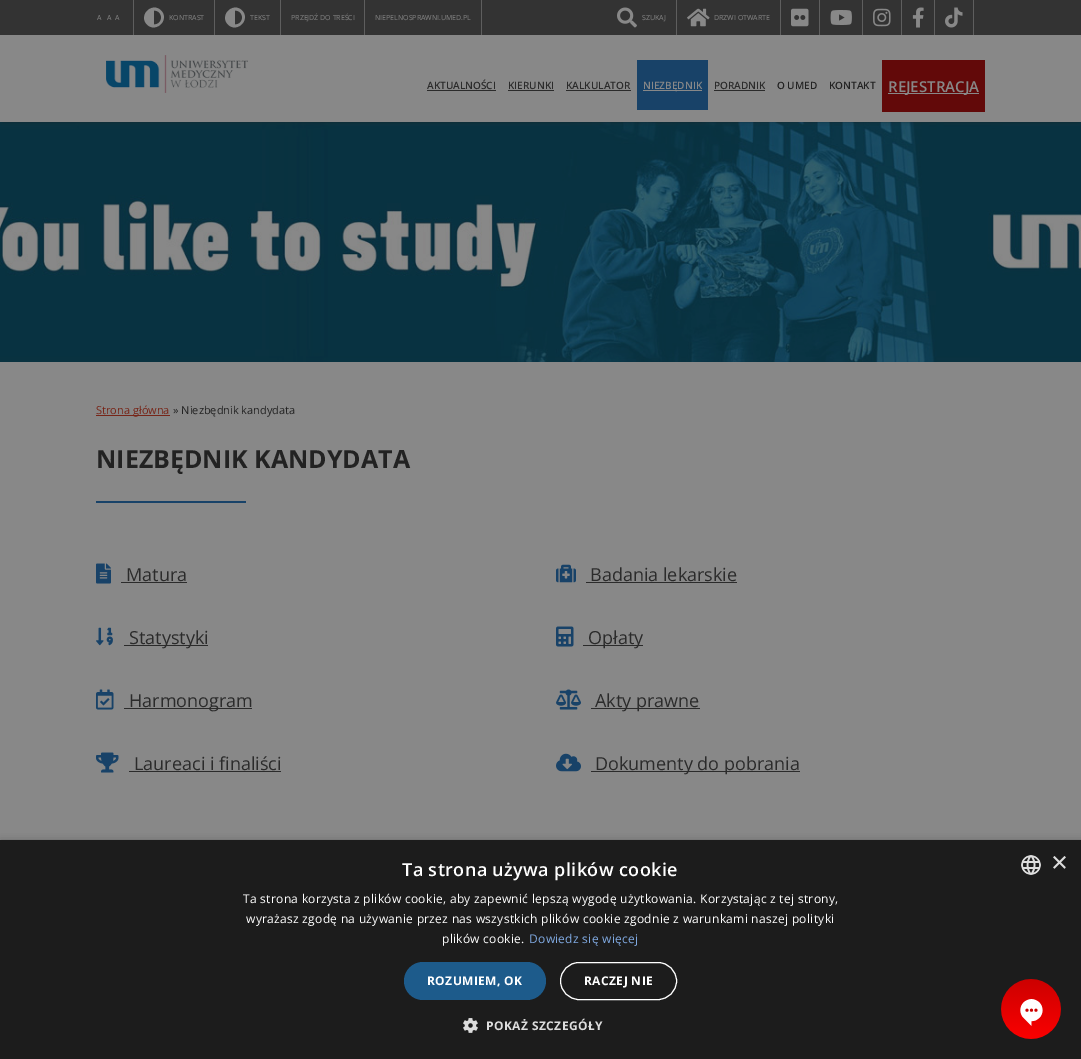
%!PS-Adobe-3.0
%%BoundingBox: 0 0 1081 1059
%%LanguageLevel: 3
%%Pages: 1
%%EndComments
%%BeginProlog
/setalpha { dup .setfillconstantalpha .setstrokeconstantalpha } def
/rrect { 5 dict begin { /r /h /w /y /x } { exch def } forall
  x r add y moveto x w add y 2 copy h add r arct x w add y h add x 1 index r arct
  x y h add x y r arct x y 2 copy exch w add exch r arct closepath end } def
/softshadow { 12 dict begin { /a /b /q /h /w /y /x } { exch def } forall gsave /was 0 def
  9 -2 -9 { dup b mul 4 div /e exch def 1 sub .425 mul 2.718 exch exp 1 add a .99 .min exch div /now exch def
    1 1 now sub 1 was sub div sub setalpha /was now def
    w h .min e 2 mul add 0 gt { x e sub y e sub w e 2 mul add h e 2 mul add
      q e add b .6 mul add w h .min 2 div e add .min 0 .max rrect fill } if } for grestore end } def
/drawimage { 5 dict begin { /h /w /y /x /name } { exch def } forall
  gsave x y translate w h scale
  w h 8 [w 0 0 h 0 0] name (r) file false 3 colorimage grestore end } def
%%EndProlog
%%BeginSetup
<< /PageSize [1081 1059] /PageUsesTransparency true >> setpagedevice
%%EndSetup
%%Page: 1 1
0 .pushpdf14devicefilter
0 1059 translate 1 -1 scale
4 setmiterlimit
0.533 setgray
0 0 1081 1059 rectfill
(images/9.raw) 0 122 1081 240 drawimage
gsave
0 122 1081 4 rectclip
0.133 setgray
3 5 1075 116 0 2.5 0.69 softshadow
grestore
0.2 setgray
0 0 1081 35 rectfill
0.369 setgray
133 0 1 35 rectfill
214 0 1 35 rectfill
0.533 setgray
newpath 147 24.5 moveto 138 15.5 152 1.5 161 10.5 curveto 170 19.5 156 33.5 147 24.5 curveto closepath 154 24.5 moveto 163.5 24.5 163.5 10.5 154 10.5 curveto closepath fill
0.369 setgray
280 0 1 35 rectfill
0.533 setgray
newpath 228 24.5 moveto 219 15.5 233 1.5 242 10.5 curveto 251 19.5 237 33.5 228 24.5 curveto closepath 235 24.5 moveto 244.5 24.5 244.5 10.5 235 10.5 curveto closepath fill
0.369 setgray
364 0 1 35 rectfill
481 0 1 35 rectfill
676 0 1 35 rectfill
(images/1.raw) 617 7 20 21 drawimage
780 0 1 35 rectfill
(images/2.raw) 687 8 23 19 drawimage
819 0 1 35 rectfill
(images/3.raw) 791 8 18 19 drawimage
862 0 1 35 rectfill
(images/4.raw) 830 10 22 15 drawimage
901 0 1 35 rectfill
(images/5.raw) 873 8 18 19 drawimage
934 0 1 35 rectfill
(images/6.raw) 912 7 12 21 drawimage
973 0 1 35 rectfill
(images/7.raw) 945 7 18 21 drawimage
(images/8.raw) 106 55 142 38 drawimage
0.169 setgray
427 90 69 1 rectfill
508 90 46 1 rectfill
566 90 65 1 rectfill
0.094 0.259 0.408 setrgbcolor
637 60 71 50 rectfill
0.533 setgray
643 90 59 1 rectfill
0.169 setgray
714 90 51 1 rectfill
0.384 0.035 0.035 setrgbcolor
882 60 103 52 rectfill
0.533 setgray
888 93 91 1 rectfill
0.467 0.145 0.094 setrgbcolor
96 415 74 1 rectfill
0.094 0.259 0.408 setrgbcolor
96 501 150 2 rectfill
(images/10.raw) 96 563 15 21 drawimage
0.169 setgray
121 582 66 1 rectfill
(images/11.raw) 96 627 17 19 drawimage
124 645 84 1 rectfill
(images/12.raw) 96 689 18 21 drawimage
124 708 128 1 rectfill
(images/13.raw) 96 752 23 21 drawimage
129 771 152 1 rectfill
(images/14.raw) 556 564 20 19 drawimage
586 582 151 1 rectfill
(images/15.raw) 556 626 18 21 drawimage
583 645 60 1 rectfill
(images/16.raw) 556 689 25 21 drawimage
591 708 109 1 rectfill
(images/17.raw) 556 753 25 19 drawimage
591 771 209 1 rectfill
0 setgray
1 842 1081 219 0 4 0.35 softshadow
0.11 setgray
0 840 1081 219 rectfill
(images/18.raw) 1021 855 20 20 drawimage
0.114 0.357 0.545 setrgbcolor
404 962 142 38 19 rrect fill
1 setgray
560.5 962.5 116 37 18.5 rrect stroke
(images/19.raw) 463 1018 15 15 drawimage
(images/20.raw) 1001 979 60 60 drawimage
/OpenSans-Regular [7 0 0 -7 0 0] selectfont
0.533 setgray
97 20 moveto (A) show
107 20 moveto (A) show
115 20 moveto (A) show
169 20 moveto (KONTRAST) show
250 20 moveto (TEKST) show
291 20 moveto (PRZEJDŹ DO TREŚCI) show
375 20 moveto (NIEPELNOSPRAWNI.UMED.PL) show
642 20 moveto (SZUKAJ) show
714 20 moveto (DRZWI OTWARTE) show
/OpenSans-SemiBold [10 0 0 -10 0 0] selectfont
0.169 setgray
427 89 moveto (AKTUALNOŚCI) show
508 89 moveto (KIERUNKI) show
566 89 moveto (KALKULATOR) show
0.533 setgray
643 89 moveto (NIEZBĘDNIK) show
0.169 setgray
714 89 moveto (PORADNIK) show
0.133 setgray
777 89 moveto (O UMED) show
829 89 moveto (KONTAKT) show
/OpenSans-SemiBold [15 0 0 -15 0 0] selectfont
0.533 setgray
888 92 moveto (REJESTRACJA) show
/OpenSans-Regular [11 0 0 -11 0 0] selectfont
0.467 0.145 0.094 setrgbcolor
96 414 moveto (Strona główna) show
0.133 setgray
173 414 moveto (» Niezbędnik kandydata) show
/OpenSans-Bold [25 0 0 -25 0 0] selectfont
96 468 moveto (NIEZBĘDNIK KANDYDATA) show
/OpenSans-Regular [18 0 0 -18 0 0] selectfont
0.169 setgray
126 581 moveto (Matura) show
129 644 moveto (Statystyki) show
129 707 moveto (Harmonogram) show
134 770 moveto (Laureaci i finaliści) show
590 581 moveto (Badania lekarskie) show
588 644 moveto (Opłaty) show
595 707 moveto (Akty prawne) show
595 770 moveto (Dokumenty do pobrania) show
/OpenSans-SemiBold [18 0 0 -18 0 0] selectfont
1 setgray
402 876 moveto 0.4 0 (Ta strona używa plików cookie) ashow
/LiberationSans-Regular [29 0 0 -29 0 0] selectfont
0.867 setgray
1051 872 moveto (×) show
/OpenSans-Regular [12 0 0 -12 0 0] selectfont
1 setgray
243 903 moveto 0.3 0 (Ta strona korzysta z plików cookie, aby zapewnić lepszą wygodę użytkowania. Korzystając z tej strony,) ashow
246 923 moveto 0.3 0 (wyrażasz zgodę na używanie przez nas wszystkich plików cookie zgodnie z warunkami naszej polityki) ashow
442 943 moveto 0.3 0 (plików cookie.) ashow
0.498 0.663 0.882 setrgbcolor
529 943 moveto 0.3 0 (Dowiedz się więcej) ashow
/OpenSans-Bold [12 0 0 -12 0 0] selectfont
1 setgray
427 985 moveto 0.4 0 (ROZUMIEM, OK) ashow
584 985 moveto 0.4 0 (RACZEJ NIE) ashow
0.867 setgray
486 1030 moveto 0.4 0 (POKAŻ SZCZEGÓŁY) ashow
.poppdf14devicefilter showpage
%%EOF
